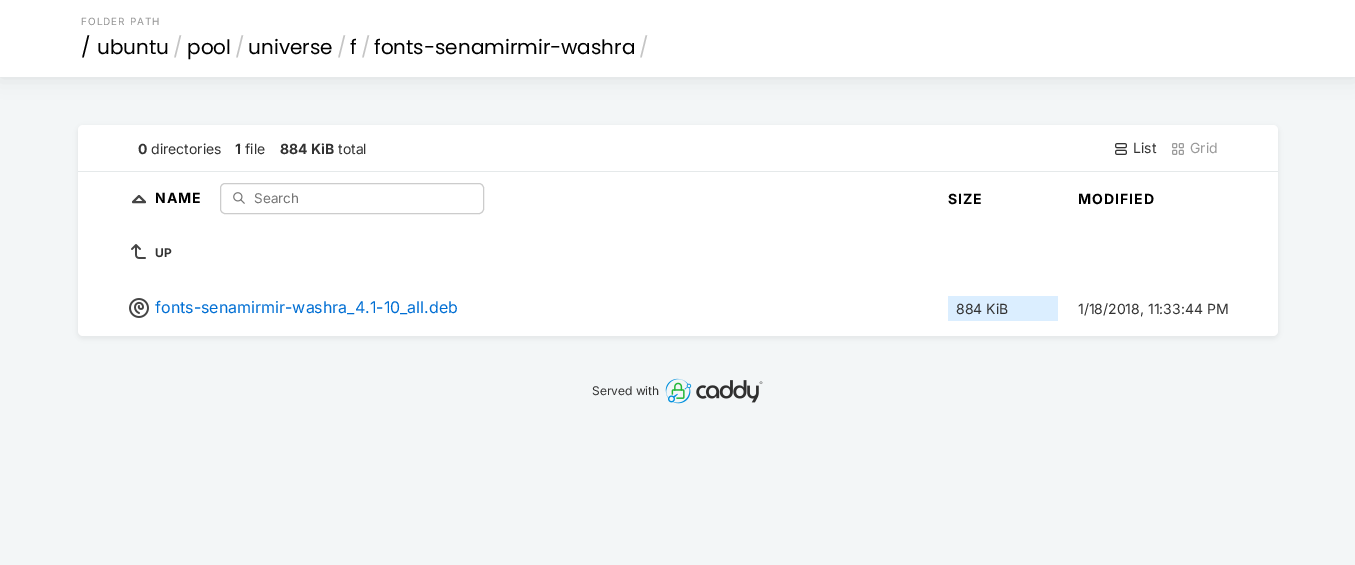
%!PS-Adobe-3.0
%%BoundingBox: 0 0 1355 565
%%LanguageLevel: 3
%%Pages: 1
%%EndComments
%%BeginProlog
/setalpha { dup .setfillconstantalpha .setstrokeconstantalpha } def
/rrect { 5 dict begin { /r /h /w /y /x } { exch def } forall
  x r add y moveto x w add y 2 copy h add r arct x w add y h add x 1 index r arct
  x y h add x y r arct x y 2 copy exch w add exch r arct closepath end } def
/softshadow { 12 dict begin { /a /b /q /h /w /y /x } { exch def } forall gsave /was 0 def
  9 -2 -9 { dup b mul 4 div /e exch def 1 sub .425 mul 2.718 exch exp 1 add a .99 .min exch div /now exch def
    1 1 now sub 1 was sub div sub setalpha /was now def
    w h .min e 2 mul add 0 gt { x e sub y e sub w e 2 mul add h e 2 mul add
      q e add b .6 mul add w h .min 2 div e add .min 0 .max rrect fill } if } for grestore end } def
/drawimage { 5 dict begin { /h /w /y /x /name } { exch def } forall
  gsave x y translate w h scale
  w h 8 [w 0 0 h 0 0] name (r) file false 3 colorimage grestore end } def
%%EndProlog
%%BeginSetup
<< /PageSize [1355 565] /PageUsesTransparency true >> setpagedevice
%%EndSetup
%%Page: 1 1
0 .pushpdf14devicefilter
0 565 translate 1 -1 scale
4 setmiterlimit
0.953 0.965 0.969 setrgbcolor
0 0 1355 565 rectfill
0 setgray
0 0 1355 77 0 10 0.1 softshadow
1 setgray
0 0 1355 77 rectfill
0 setgray
77 126 1202 213 6 2.5 0.05 softshadow
1 setgray
78 125 1200 211 5 rrect fill
0.898 0.914 0.918 setrgbcolor
78 171 1200 1 rectfill
(images/1.raw) 1115 143 12 12 drawimage
(images/2.raw) 1172 143 12 12 drawimage
0.271 setgray
2 setlinewidth
1 setlinecap
1 setlinejoin
newpath 145 202 moveto 139 196 lineto 133 202 lineto 145 202 lineto stroke
(images/3.raw) 233 192 12 12 drawimage
0.8 setgray
1 setlinewidth
0 setlinecap
0 setlinejoin
220.5 183.5 263 30 4.5 rrect stroke
(images/4.raw) 131 244 15 15 drawimage
(images/5.raw) 129 298 20 20 drawimage
0.859 0.933 1 setrgbcolor
948 296 110 25 rectfill
(images/6.raw) 665 378 98 26 drawimage
/Inter-Regular [10 0 0 -10 0 0] selectfont
0.576 setgray
81 25 moveto 1 0 (FOLDER PATH) ashow
/Poppins-Regular [20 0 0 -20 0 0] selectfont
0 setgray
81 54 moveto (/) show
97 54 moveto (ubuntu) show
0.773 setgray
173 54 moveto (/) show
0 setgray
187 54 moveto (pool) show
0.773 setgray
235 54 moveto (/) show
0 setgray
248 54 moveto (universe) show
0.773 setgray
337 54 moveto (/) show
0 setgray
350 54 moveto (f) show
0.773 setgray
361 54 moveto (/) show
0 setgray
374 54 moveto (fonts-senamirmir-washra) show
0.773 setgray
639 54 moveto (/) show
/Inter-Bold [14 0 0 -14 0 0] selectfont
0.2 setgray
138 154 moveto (0) show
/Inter-Regular [14 0 0 -14 0 0] selectfont
151 154 moveto (directories) show
/Inter-Bold [14 0 0 -14 0 0] selectfont
235 154 moveto (1) show
/Inter-Regular [14 0 0 -14 0 0] selectfont
245 154 moveto (file) show
/Inter-Bold [14 0 0 -14 0 0] selectfont
280 154 moveto (884 KiB) show
/Inter-Regular [14 0 0 -14 0 0] selectfont
338 154 moveto (total) show
1133 153 moveto (List) show
0.604 setgray
1190 153 moveto (Grid) show
/Inter-Bold [14 0 0 -14 0 0] selectfont
0 setgray
155 203 moveto 1 0 (NAME) ashow
/Inter-Regular [13.5 0 0 -13.5 0 0] selectfont
0.459 setgray
254 203 moveto (Search) show
/Inter-Bold [14 0 0 -14 0 0] selectfont
0 setgray
948 204 moveto 1 0 (SIZE) ashow
1078 204 moveto 1 0 (MODIFIED) ashow
/Inter-Bold [12 0 0 -12 0 0] selectfont
0.2 setgray
155 257 moveto (UP) show
/Inter-Regular [16 0 0 -16 0 0] selectfont
0 0.431 0.827 setrgbcolor
155 313 moveto (fonts-senamirmir-washra_4.1-10_all.deb) show
/Inter-Regular [14 0 0 -14 0 0] selectfont
0.2 setgray
956 314 moveto (884 KiB) show
1078 314 moveto (1/18/2018, 11:33:44 PM) show
/Inter-Regular [12 0 0 -12 0 0] selectfont
592 395 moveto (Served with) show
.poppdf14devicefilter showpage
%%EOF
